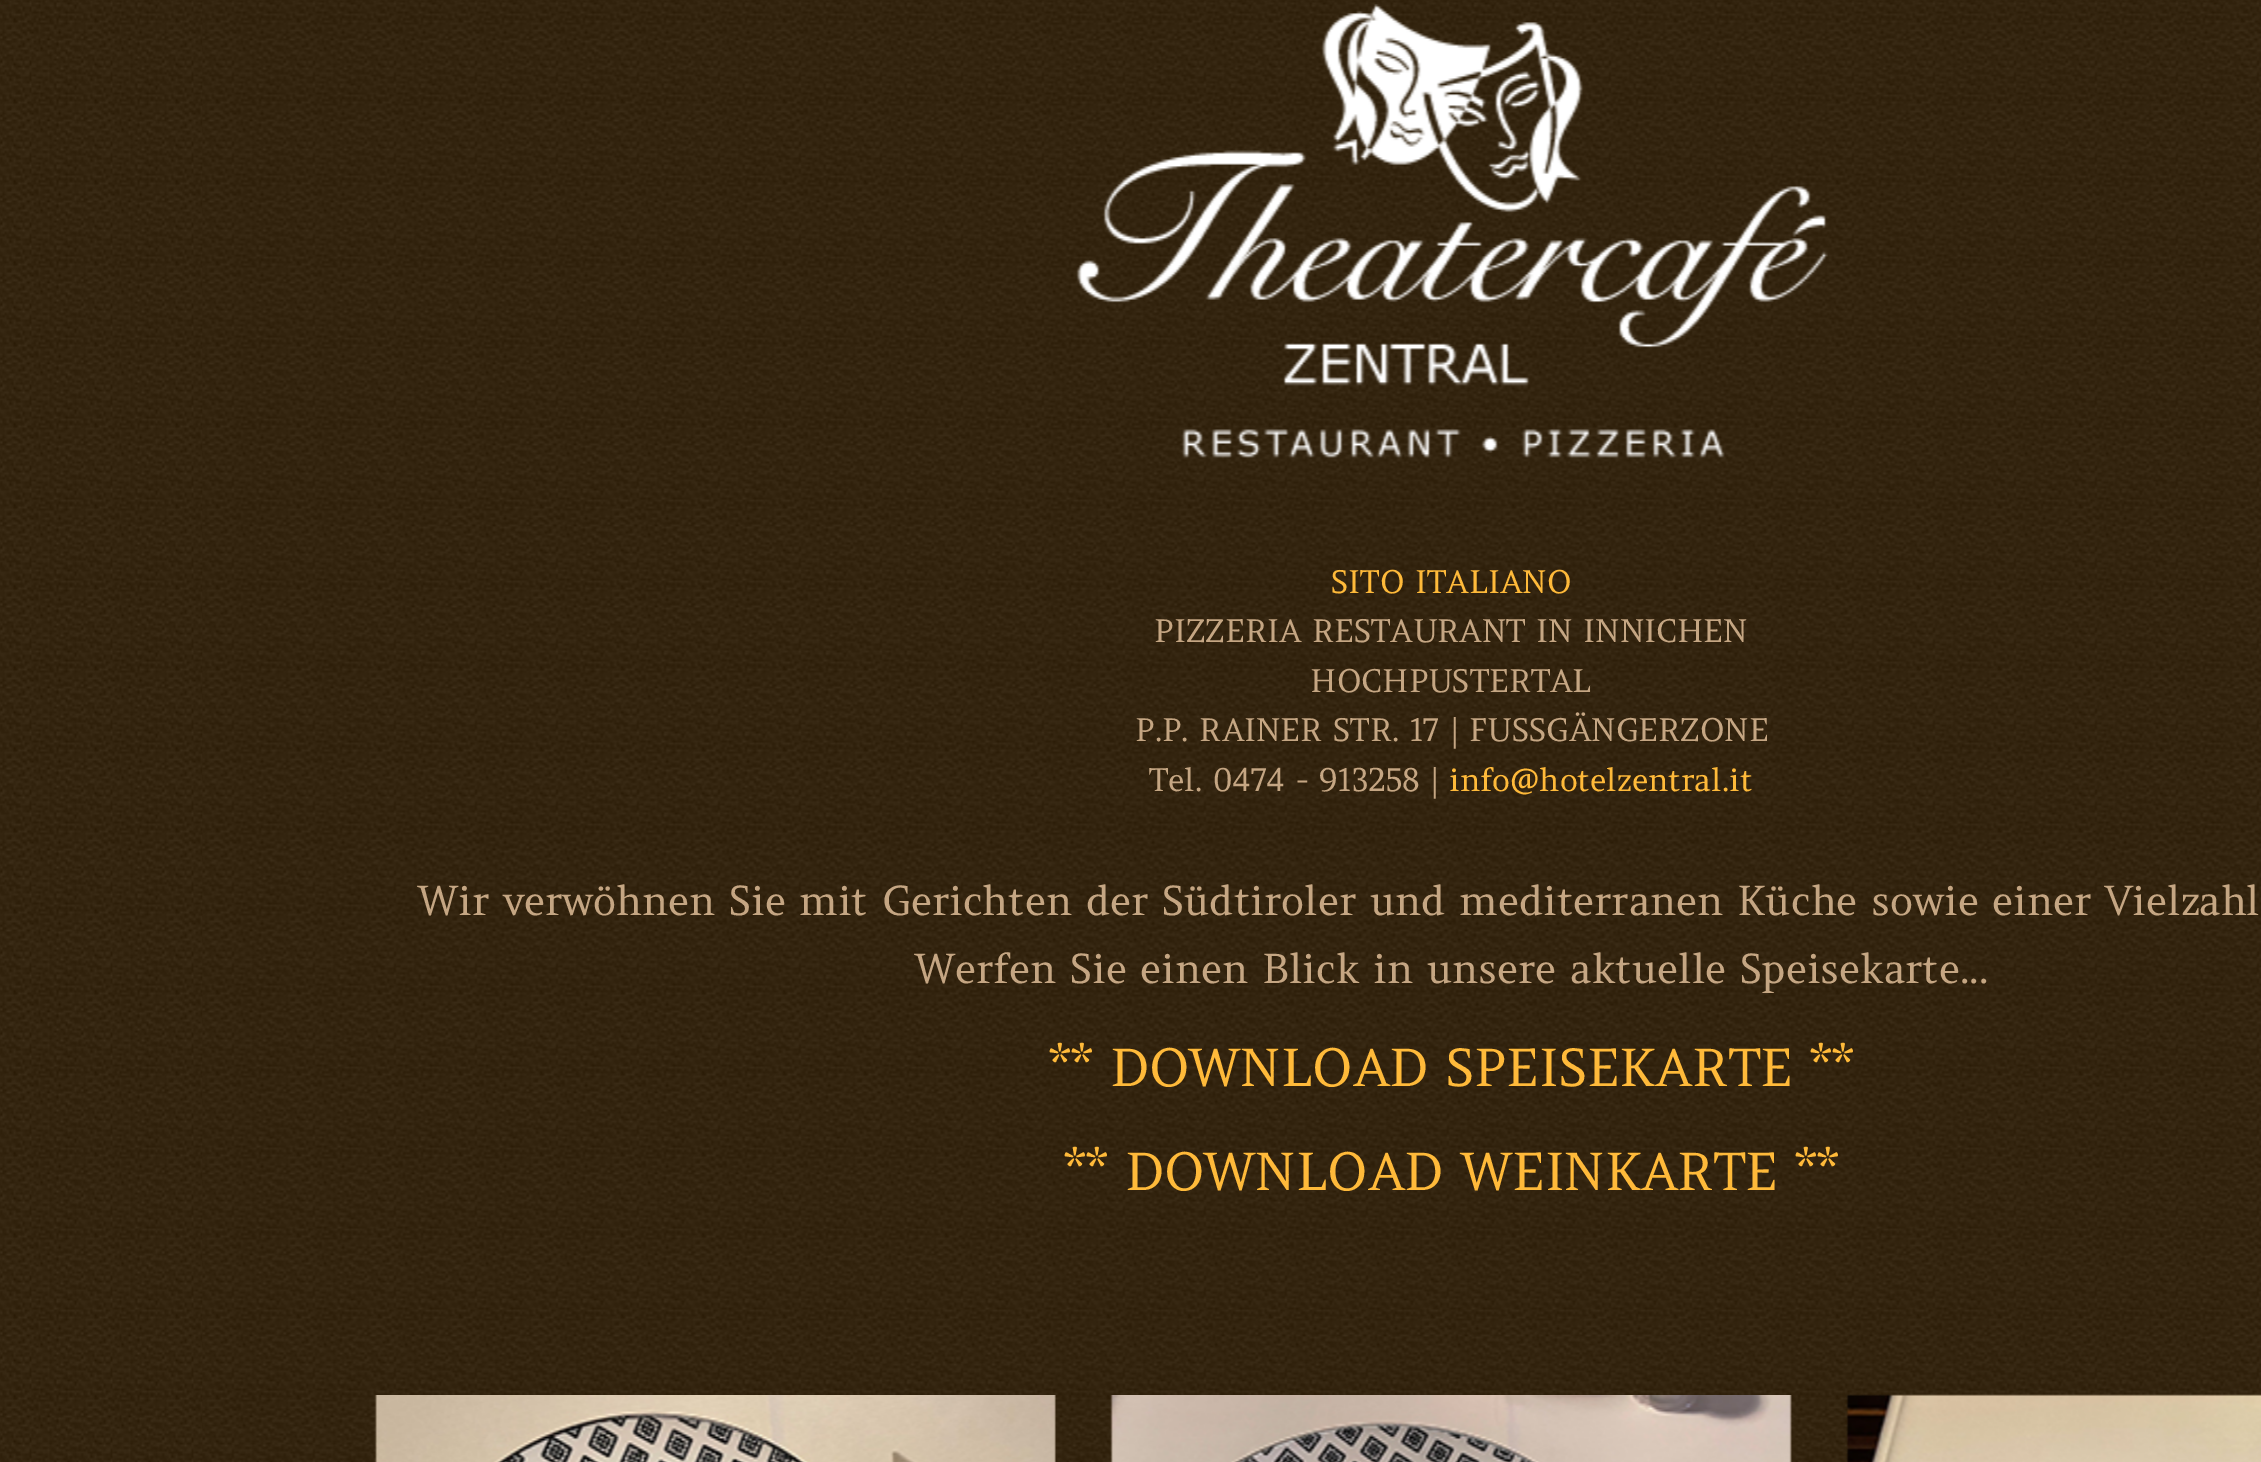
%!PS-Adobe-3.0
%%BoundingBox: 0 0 2261 1462
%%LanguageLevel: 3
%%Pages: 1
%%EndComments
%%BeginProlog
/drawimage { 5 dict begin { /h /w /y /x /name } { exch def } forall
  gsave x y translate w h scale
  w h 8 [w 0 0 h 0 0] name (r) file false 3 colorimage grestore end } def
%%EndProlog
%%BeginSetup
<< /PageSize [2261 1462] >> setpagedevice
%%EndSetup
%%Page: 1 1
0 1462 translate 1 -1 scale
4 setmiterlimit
1 setgray
0 0 2261 1462 rectfill
(images/1.raw) 0 0 203 1462 drawimage
(images/2.raw) 202 0 2059 1462 drawimage
(images/3.raw) 1076 4 752 454 drawimage
(images/4.raw) 374 1395 682 67 drawimage
(images/5.raw) 1110 1395 682 67 drawimage
(images/6.raw) 1846 1394 415 68 drawimage
/Amethysta-Regular [31.5 0 0 -31.5 0 0] selectfont
1 0.729 0.227 setrgbcolor
1331 593 moveto (SITO ITALIANO) show
0.773 0.651 0.514 setrgbcolor
1154 642 moveto (PIZZERIA RESTAURANT IN INNICHEN) show
1310 692 moveto (HOCHPUSTERTAL) show
1135 741 moveto (P.P. RAINER STR. 17 | FUSSGÄNGERZONE) show
1149 791 moveto (Tel. 0474 - 913258 |) show
1 0.729 0.227 setrgbcolor
1449 791 moveto (info@hotelzentral.it) show
/Amethysta-Regular [40.5 0 0 -40.5 0 0] selectfont
0.773 0.651 0.514 setrgbcolor
418 915 moveto (Wir verwöhnen Sie mit Gerichten der Südtiroler und mediterranen Küche sowie einer Vielzahl) show
915 983 moveto (Werfen Sie einen Blick in unsere aktuelle Speisekarte...) show
/Amethysta-Regular [51.75 0 0 -51.75 0 0] selectfont
1 0.729 0.227 setrgbcolor
1049 1086 moveto (** DOWNLOAD SPEISEKARTE **) show
1064 1190 moveto (** DOWNLOAD WEINKARTE **) show
showpage
%%EOF
